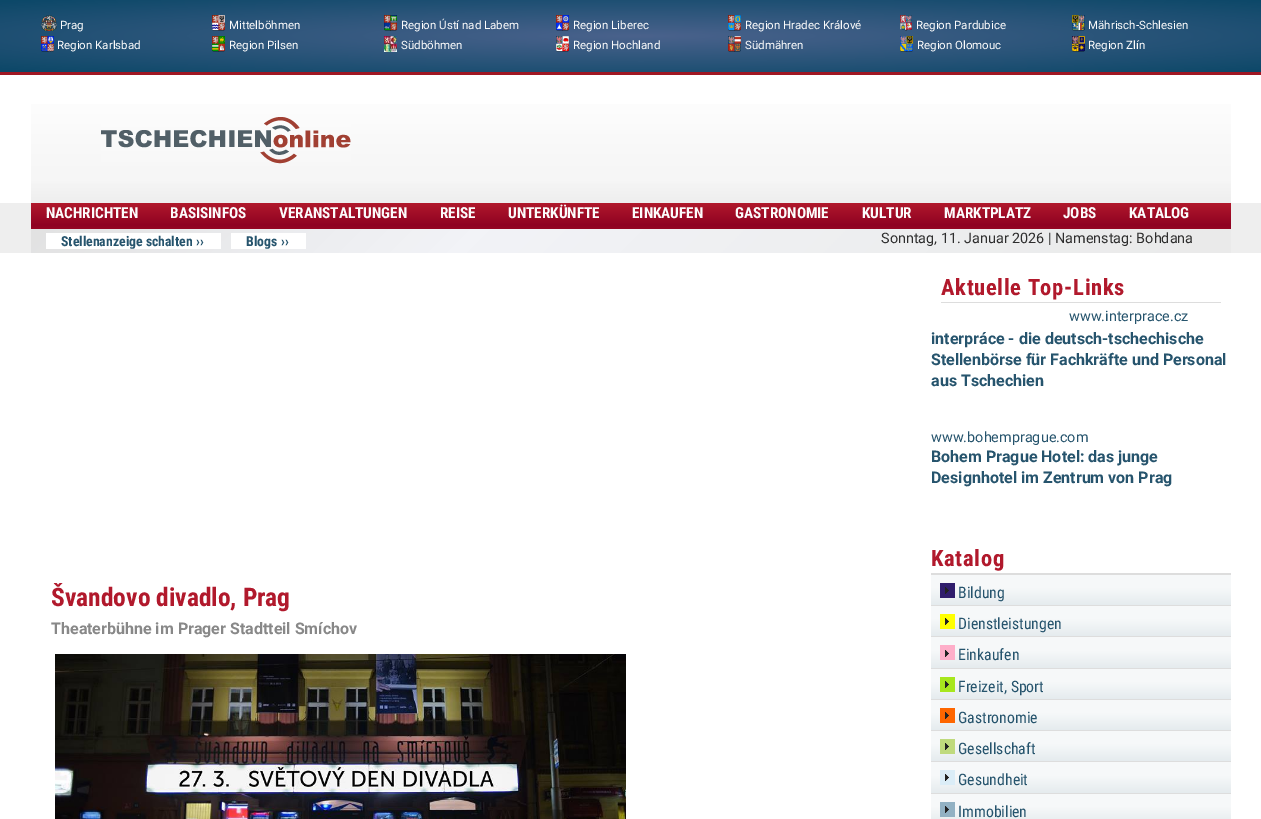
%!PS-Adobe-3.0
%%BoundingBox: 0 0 1261 819
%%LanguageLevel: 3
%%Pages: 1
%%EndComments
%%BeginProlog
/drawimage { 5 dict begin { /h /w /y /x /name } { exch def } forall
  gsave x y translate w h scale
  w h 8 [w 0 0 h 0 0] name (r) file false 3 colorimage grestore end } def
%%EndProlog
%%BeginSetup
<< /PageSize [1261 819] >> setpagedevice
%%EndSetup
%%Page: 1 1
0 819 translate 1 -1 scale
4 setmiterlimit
1 setgray
0 0 1261 819 rectfill
gsave newpath 0 0 moveto 1261 0 lineto 1261 72 lineto 0 72 lineto closepath clip newpath 641 36 translate 906 51 scale
<< /ShadingType 3 /ColorSpace /DeviceRGB /Coords [0 0 0 0 0 1] /Extend [true true] /Function << /FunctionType 3 /Domain [0 1] /Functions [<< /FunctionType 2 /Domain [0 1] /C0 [0.29 0.384 0.549] /C1 [0.047 0.282 0.408] /N 1 >> << /FunctionType 2 /Domain [0 1] /C0 [0.047 0.282 0.408] /C1 [0.047 0.282 0.408] /N 1 >>] /Bounds [0.99] /Encode [0 1 0 1] >> >> shfill grestore
0.624 0.09 0.137 setrgbcolor
0 72 1261 3 rectfill
(images/1.raw) 41 15 16 16 drawimage
(images/2.raw) 212 15 13 16 drawimage
(images/3.raw) 384 15 13 16 drawimage
(images/4.raw) 556 15 13 16 drawimage
(images/5.raw) 728 15 13 16 drawimage
(images/6.raw) 900 15 12 16 drawimage
(images/7.raw) 1072 15 13 16 drawimage
(images/8.raw) 41 36 13 16 drawimage
(images/9.raw) 212 36 13 16 drawimage
(images/10.raw) 384 36 13 16 drawimage
(images/11.raw) 556 36 13 16 drawimage
(images/12.raw) 728 36 13 16 drawimage
(images/13.raw) 900 36 13 16 drawimage
(images/14.raw) 1072 36 13 16 drawimage
0.933 setgray
0 203 1261 50 rectfill
gsave newpath 31 203 moveto 1231 203 lineto 1231 229 lineto 31 229 lineto closepath clip newpath
<< /ShadingType 2 /ColorSpace /DeviceRGB /Coords [631 203 631 253] /Extend [true true] /Function << /FunctionType 3 /Domain [0 1] /Functions [<< /FunctionType 2 /Domain [0 1] /C0 [0.694 0.098 0.173] /C1 [0.561 0.008 0.133] /N 1 >> << /FunctionType 2 /Domain [0 1] /C0 [0.561 0.008 0.133] /C1 [0.694 0.098 0.173] /N 1 >>] /Bounds [0.44] /Encode [0 1 0 1] >> >> shfill grestore
gsave newpath 31 229 moveto 1231 229 lineto 1231 253 lineto 31 253 lineto closepath clip newpath
<< /ShadingType 2 /ColorSpace /DeviceRGB /Coords [325 -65 937 547] /Extend [true true] /Function << /FunctionType 3 /Domain [0 1] /Functions [<< /FunctionType 2 /Domain [0 1] /C0 [0.886 0.886 0.886] /C1 [0.949 0.953 0.969] /N 1 >> << /FunctionType 2 /Domain [0 1] /C0 [0.949 0.953 0.969] /C1 [0.918 0.918 0.918] /N 1 >>] /Bounds [0.36] /Encode [0 1 0 1] >> >> shfill grestore
1 setgray
46 233 175 16 rectfill
231 233 75 16 rectfill
gsave newpath 31 104 moveto 1231 104 lineto 1231 203 lineto 31 203 lineto closepath clip newpath
<< /ShadingType 2 /ColorSpace /DeviceRGB /Coords [631 75 631 203] /Extend [true true] /Function << /FunctionType 3 /Domain [0 1] /Functions [<< /FunctionType 2 /Domain [0 1] /C0 [1 1 1] /C1 [0.965 0.965 0.965] /N 1 >> << /FunctionType 2 /Domain [0 1] /C0 [0.965 0.965 0.965] /C1 [0.933 0.933 0.933] /N 1 >>] /Bounds [0.82] /Encode [0 1 0 1] >> >> shfill grestore
(images/15.raw) 101 117 250 47 drawimage
(images/16.raw) 55 654 571 165 drawimage
0.867 setgray
941 302 280 1 rectfill
931 573 300 2 rectfill
gsave newpath 931 575 moveto 1231 575 lineto 1231 605 lineto 931 605 lineto closepath clip newpath
<< /ShadingType 2 /ColorSpace /DeviceRGB /Coords [1081 575 1081 605] /Extend [true true] /Function << /FunctionType 3 /Domain [0 1] /Functions [<< /FunctionType 2 /Domain [0 1] /C0 [0.965 0.973 0.976] /C1 [0.965 0.973 0.976] /N 1 >> << /FunctionType 2 /Domain [0 1] /C0 [0.965 0.973 0.976] /C1 [0.898 0.922 0.933] /N 1 >>] /Bounds [0.43] /Encode [0 1 0 1] >> >> shfill grestore
0.188 0.114 0.424 setrgbcolor
940 583 15 15 rectfill
(images/17.raw) 945 587 4 7 drawimage
gsave newpath 931 606 moveto 1231 606 lineto 1231 636 lineto 931 636 lineto closepath clip newpath
<< /ShadingType 2 /ColorSpace /DeviceRGB /Coords [1081 606 1081 636] /Extend [true true] /Function << /FunctionType 3 /Domain [0 1] /Functions [<< /FunctionType 2 /Domain [0 1] /C0 [0.965 0.973 0.976] /C1 [0.965 0.973 0.976] /N 1 >> << /FunctionType 2 /Domain [0 1] /C0 [0.965 0.973 0.976] /C1 [0.898 0.922 0.933] /N 1 >>] /Bounds [0.43] /Encode [0 1 0 1] >> >> shfill grestore
0.867 setgray
931 605 300 1 rectfill
1 1 0.004 setrgbcolor
940 614 15 15 rectfill
(images/18.raw) 945 618 4 7 drawimage
gsave newpath 931 637 moveto 1231 637 lineto 1231 668 lineto 931 668 lineto closepath clip newpath
<< /ShadingType 2 /ColorSpace /DeviceRGB /Coords [1081 637 1081 668] /Extend [true true] /Function << /FunctionType 3 /Domain [0 1] /Functions [<< /FunctionType 2 /Domain [0 1] /C0 [0.965 0.973 0.976] /C1 [0.965 0.973 0.976] /N 1 >> << /FunctionType 2 /Domain [0 1] /C0 [0.965 0.973 0.976] /C1 [0.898 0.922 0.933] /N 1 >>] /Bounds [0.43] /Encode [0 1 0 1] >> >> shfill grestore
0.867 setgray
931 636 300 1 rectfill
0.996 0.682 0.788 setrgbcolor
940 645 15 15 rectfill
(images/19.raw) 945 650 4 7 drawimage
gsave newpath 931 669 moveto 1231 669 lineto 1231 699 lineto 931 699 lineto closepath clip newpath
<< /ShadingType 2 /ColorSpace /DeviceRGB /Coords [1081 669 1081 699] /Extend [true true] /Function << /FunctionType 3 /Domain [0 1] /Functions [<< /FunctionType 2 /Domain [0 1] /C0 [0.965 0.973 0.976] /C1 [0.965 0.973 0.976] /N 1 >> << /FunctionType 2 /Domain [0 1] /C0 [0.965 0.973 0.976] /C1 [0.898 0.922 0.933] /N 1 >>] /Bounds [0.43] /Encode [0 1 0 1] >> >> shfill grestore
0.867 setgray
931 668 300 1 rectfill
0.655 0.906 0.118 setrgbcolor
940 677 15 15 rectfill
(images/20.raw) 945 681 4 7 drawimage
gsave newpath 931 700 moveto 1231 700 lineto 1231 730 lineto 931 730 lineto closepath clip newpath
<< /ShadingType 2 /ColorSpace /DeviceRGB /Coords [1081 700 1081 730] /Extend [true true] /Function << /FunctionType 3 /Domain [0 1] /Functions [<< /FunctionType 2 /Domain [0 1] /C0 [0.965 0.973 0.976] /C1 [0.965 0.973 0.976] /N 1 >> << /FunctionType 2 /Domain [0 1] /C0 [0.965 0.973 0.976] /C1 [0.898 0.922 0.933] /N 1 >>] /Bounds [0.43] /Encode [0 1 0 1] >> >> shfill grestore
0.867 setgray
931 699 300 1 rectfill
0.996 0.4 0 setrgbcolor
940 708 15 15 rectfill
(images/21.raw) 945 712 4 7 drawimage
gsave newpath 931 731 moveto 1231 731 lineto 1231 761 lineto 931 761 lineto closepath clip newpath
<< /ShadingType 2 /ColorSpace /DeviceRGB /Coords [1081 731 1081 761] /Extend [true true] /Function << /FunctionType 3 /Domain [0 1] /Functions [<< /FunctionType 2 /Domain [0 1] /C0 [0.965 0.973 0.976] /C1 [0.965 0.973 0.976] /N 1 >> << /FunctionType 2 /Domain [0 1] /C0 [0.965 0.973 0.976] /C1 [0.898 0.922 0.933] /N 1 >>] /Bounds [0.43] /Encode [0 1 0 1] >> >> shfill grestore
0.867 setgray
931 730 300 1 rectfill
0.749 0.855 0.49 setrgbcolor
940 739 15 15 rectfill
(images/22.raw) 945 743 4 7 drawimage
gsave newpath 931 762 moveto 1231 762 lineto 1231 793 lineto 931 793 lineto closepath clip newpath
<< /ShadingType 2 /ColorSpace /DeviceRGB /Coords [1081 762 1081 793] /Extend [true true] /Function << /FunctionType 3 /Domain [0 1] /Functions [<< /FunctionType 2 /Domain [0 1] /C0 [0.965 0.973 0.976] /C1 [0.965 0.973 0.976] /N 1 >> << /FunctionType 2 /Domain [0 1] /C0 [0.965 0.973 0.976] /C1 [0.898 0.922 0.933] /N 1 >>] /Bounds [0.43] /Encode [0 1 0 1] >> >> shfill grestore
0.867 setgray
931 761 300 1 rectfill
0.859 0.929 0.969 setrgbcolor
940 770 15 15 rectfill
(images/23.raw) 945 774 4 7 drawimage
gsave newpath 931 794 moveto 1231 794 lineto 1231 819 lineto 931 819 lineto closepath clip newpath
<< /ShadingType 2 /ColorSpace /DeviceRGB /Coords [1081 794 1081 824] /Extend [true true] /Function << /FunctionType 3 /Domain [0 1] /Functions [<< /FunctionType 2 /Domain [0 1] /C0 [0.965 0.973 0.976] /C1 [0.965 0.973 0.976] /N 1 >> << /FunctionType 2 /Domain [0 1] /C0 [0.965 0.973 0.976] /C1 [0.898 0.922 0.933] /N 1 >>] /Bounds [0.43] /Encode [0 1 0 1] >> >> shfill grestore
0.867 setgray
931 793 300 1 rectfill
0.573 0.694 0.765 setrgbcolor
940 802 15 15 rectfill
(images/24.raw) 945 806 4 7 drawimage
/Roboto-Regular [11.5 0 0 -11.5 0 0] selectfont
0.988 setgray
60 29 moveto (Prag) show
229 29 moveto (Mittelböhmen) show
401 29 moveto (Region Ústí nad Labem) show
573 29 moveto (Region Liberec) show
745 29 moveto (Region Hradec Králové) show
916 29 moveto (Region Pardubice) show
1088 29 moveto (Mährisch-Schlesien) show
57 49 moveto (Region Karlsbad) show
229 49 moveto (Region Pilsen) show
401 49 moveto (Südböhmen) show
573 49 moveto (Region Hochland) show
745 49 moveto (Südmähren) show
917 49 moveto (Region Olomouc) show
1088 49 moveto (Region Zlín) show
/RobotoCondensed-Bold [15.25 0 0 -15.25 0 0] selectfont
46 218 moveto (NACHRICHTEN) show
170 218 moveto (BASISINFOS) show
279 218 moveto (VERANSTALTUNGEN) show
440 218 moveto (REISE) show
508 218 moveto (UNTERKÜNFTE) show
632 218 moveto (EINKAUFEN) show
735 218 moveto (GASTRONOMIE) show
862 218 moveto (KULTUR) show
944 218 moveto (MARKTPLATZ) show
1063 218 moveto (JOBS) show
1129 218 moveto (KATALOG) show
/RobotoCondensed-Bold [13.75 0 0 -13.75 0 0] selectfont
0.149 0.329 0.427 setrgbcolor
61 246 moveto (Stellenanzeige schalten) show
196 246 moveto (››) show
246 246 moveto (Blogs) show
281 246 moveto (››) show
/Roboto-Regular [14.4 0 0 -14.4 0 0] selectfont
0.18 setgray
881 243 moveto (Sonntag, 11. Januar 2026 | Namenstag: Bohdana) show
/RobotoCondensed-Bold [25.5 0 0 -25.5 0 0] selectfont
0.694 0.098 0.173 setrgbcolor
51 606 moveto (Švandovo divadlo, Prag) show
/Roboto-Bold [16 0 0 -16 0 0] selectfont
0.533 setgray
51 634 moveto (Theaterbühne im Prager Stadtteil Smíchov) show
/RobotoCondensed-Bold [22.5 0 0 -22.5 0 0] selectfont
0.694 0.098 0.173 setrgbcolor
941 295 moveto 0.7 0 (Aktuelle Top-Links) ashow
/Roboto-Regular [14.4 0 0 -14.4 0 0] selectfont
0.149 0.329 0.427 setrgbcolor
1069 321 moveto (www.interprace.cz) show
/Roboto-Bold [16 0 0 -16 0 0] selectfont
931 344 moveto (interpráce - die deutsch-tschechische) show
931 365 moveto (Stellenbörse für Fachkräfte und Personal) show
931 386 moveto (aus Tschechien) show
/Roboto-Regular [14.4 0 0 -14.4 0 0] selectfont
931 442 moveto (www.bohemprague.com) show
/Roboto-Bold [16 0 0 -16 0 0] selectfont
931 462 moveto (Bohem Prague Hotel: das junge) show
931 483 moveto (Designhotel im Zentrum von Prag) show
/RobotoCondensed-Bold [22.5 0 0 -22.5 0 0] selectfont
0.694 0.098 0.173 setrgbcolor
931 566 moveto 0.7 0 (Katalog) ashow
/RobotoCondensed-Regular [15.75 0 0 -15.75 0 0] selectfont
0.149 0.329 0.427 setrgbcolor
958 598 moveto (Bildung) show
958 629 moveto (Dienstleistungen) show
958 660 moveto (Einkaufen) show
958 692 moveto (Freizeit, Sport) show
958 723 moveto (Gastronomie) show
958 754 moveto (Gesellschaft) show
958 785 moveto (Gesundheit) show
958 817 moveto (Immobilien) show
showpage
%%EOF
